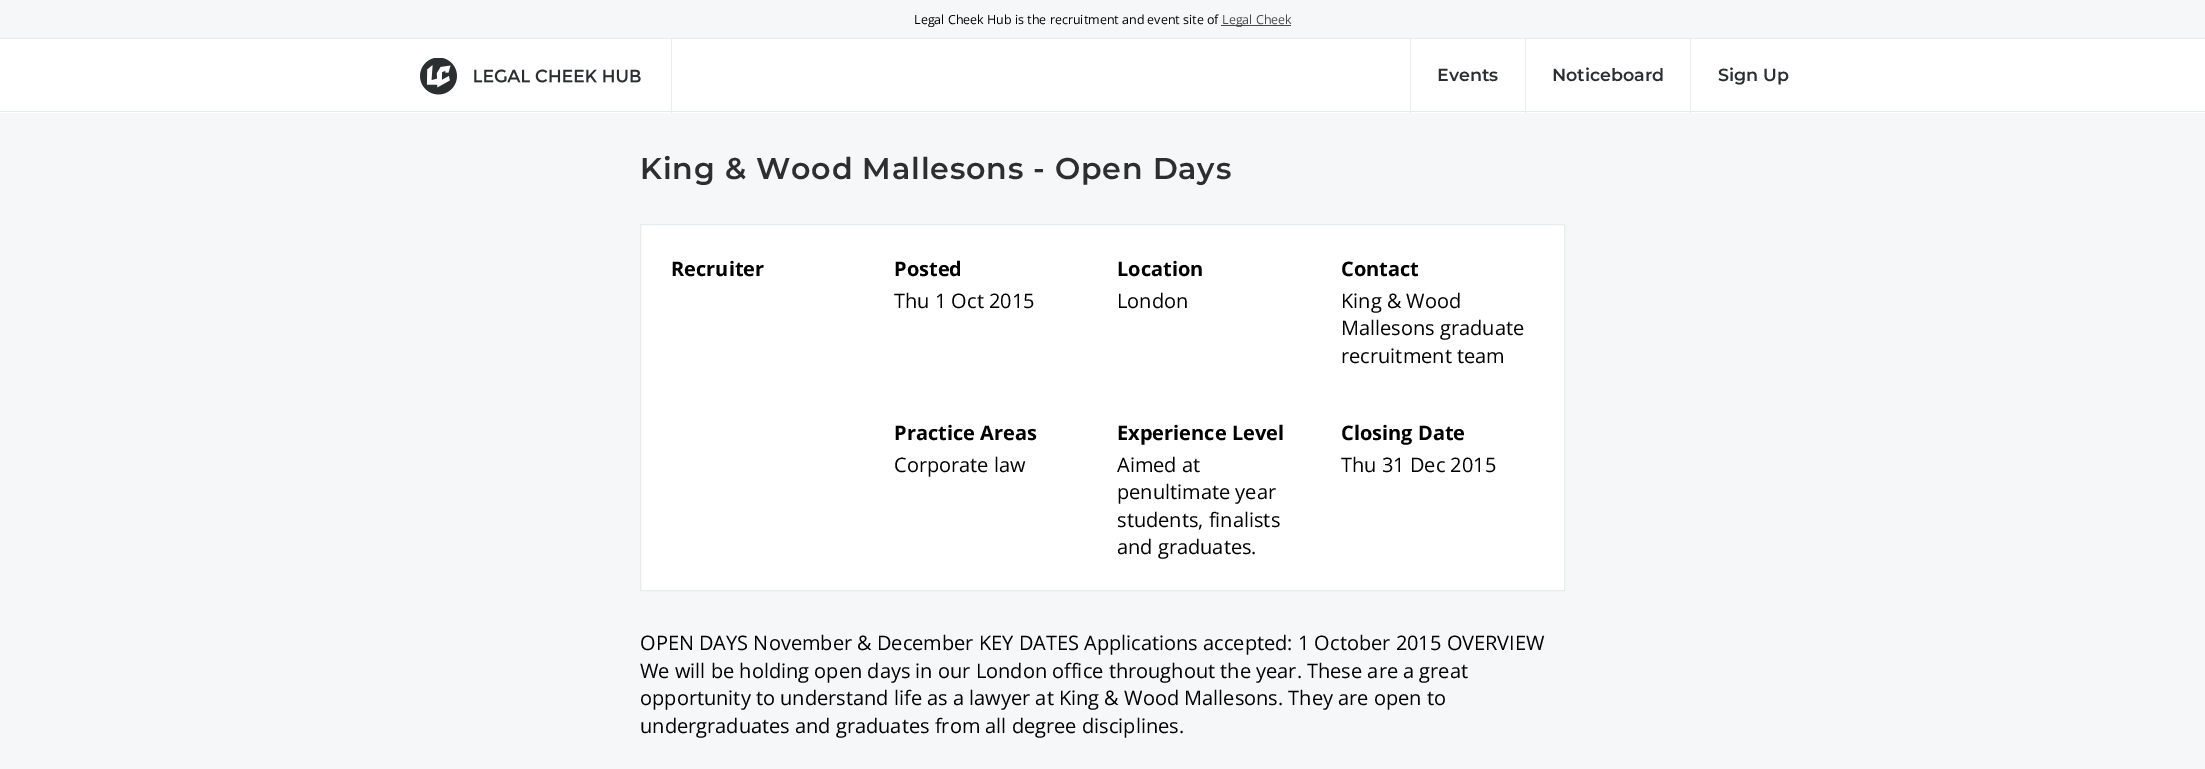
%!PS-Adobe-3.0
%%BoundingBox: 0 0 2205 769
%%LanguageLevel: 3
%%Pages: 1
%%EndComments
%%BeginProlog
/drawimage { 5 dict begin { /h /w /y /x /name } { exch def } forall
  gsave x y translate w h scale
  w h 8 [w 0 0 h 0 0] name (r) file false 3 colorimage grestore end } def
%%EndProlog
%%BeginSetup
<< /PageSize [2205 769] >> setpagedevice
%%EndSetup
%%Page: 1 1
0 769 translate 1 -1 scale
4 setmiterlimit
0.965 0.969 0.973 setrgbcolor
0 0 2205 769 rectfill
0.282 setgray
1221 25 70 1 rectfill
1 setgray
0 39 2205 74 rectfill
0.906 0.925 0.933 setrgbcolor
0 38 2205 1 rectfill
0 111 2205 1 rectfill
671 39 1 74 rectfill
(images/1.raw) 420 58 221 37 drawimage
1410 39 1 74 rectfill
1525 39 1 74 rectfill
1690 39 1 74 rectfill
1 setgray
newpath 640.5 224.5 moveto 1564.5 224.5 lineto 1564.5 590.5 lineto 640.5 590.5 lineto closepath gsave fill grestore
0.906 0.925 0.933 setrgbcolor
stroke
/OpenSans-Regular [12.5 0 0 -12.5 0 0] selectfont
0 setgray
914 24 moveto (Legal Cheek Hub is the recruitment and event site of) show
0.282 setgray
1222 24 moveto (Legal Cheek) show
/Montserrat-SemiBold [17.5 0 0 -17.5 0 0] selectfont
0.169 0.184 0.188 setrgbcolor
1437 81 moveto (Events) show
1552 81 moveto (Noticeboard) show
1718 81 moveto (Sign Up) show
/Montserrat-SemiBold [30 0 0 -30 0 0] selectfont
640 179 moveto 0.9 0 (King & Wood Mallesons - Open Days) ashow
/OpenSans-Bold [20 0 0 -20 0 0] selectfont
0 setgray
671 276 moveto (Recruiter) show
894 276 moveto (Posted) show
/OpenSans-Regular [20 0 0 -20 0 0] selectfont
894 308 moveto (Thu 1 Oct 2015) show
/OpenSans-Bold [20 0 0 -20 0 0] selectfont
1117 276 moveto (Location) show
/OpenSans-Regular [20 0 0 -20 0 0] selectfont
1117 308 moveto (London) show
/OpenSans-Bold [20 0 0 -20 0 0] selectfont
1341 276 moveto (Contact) show
/OpenSans-Regular [20 0 0 -20 0 0] selectfont
1341 308 moveto (King & Wood) show
1341 335 moveto (Mallesons graduate) show
1341 363 moveto (recruitment team) show
/OpenSans-Bold [20 0 0 -20 0 0] selectfont
894 440 moveto (Practice Areas) show
/OpenSans-Regular [20 0 0 -20 0 0] selectfont
894 472 moveto (Corporate law) show
/OpenSans-Bold [20 0 0 -20 0 0] selectfont
1117 440 moveto (Experience Level) show
/OpenSans-Regular [20 0 0 -20 0 0] selectfont
1117 472 moveto (Aimed at) show
1117 499 moveto (penultimate year) show
1117 527 moveto (students, finalists) show
1117 554 moveto (and graduates.) show
/OpenSans-Bold [20 0 0 -20 0 0] selectfont
1341 440 moveto (Closing Date) show
/OpenSans-Regular [20 0 0 -20 0 0] selectfont
1341 472 moveto (Thu 31 Dec 2015) show
640 650 moveto (OPEN DAYS November & December KEY DATES Applications accepted: 1 October 2015 OVERVIEW) show
640 678 moveto (We will be holding open days in our London office throughout the year. These are a great) show
640 705 moveto (opportunity to understand life as a lawyer at King & Wood Mallesons. They are open to) show
640 733 moveto (undergraduates and graduates from all degree disciplines.) show
showpage
%%EOF
